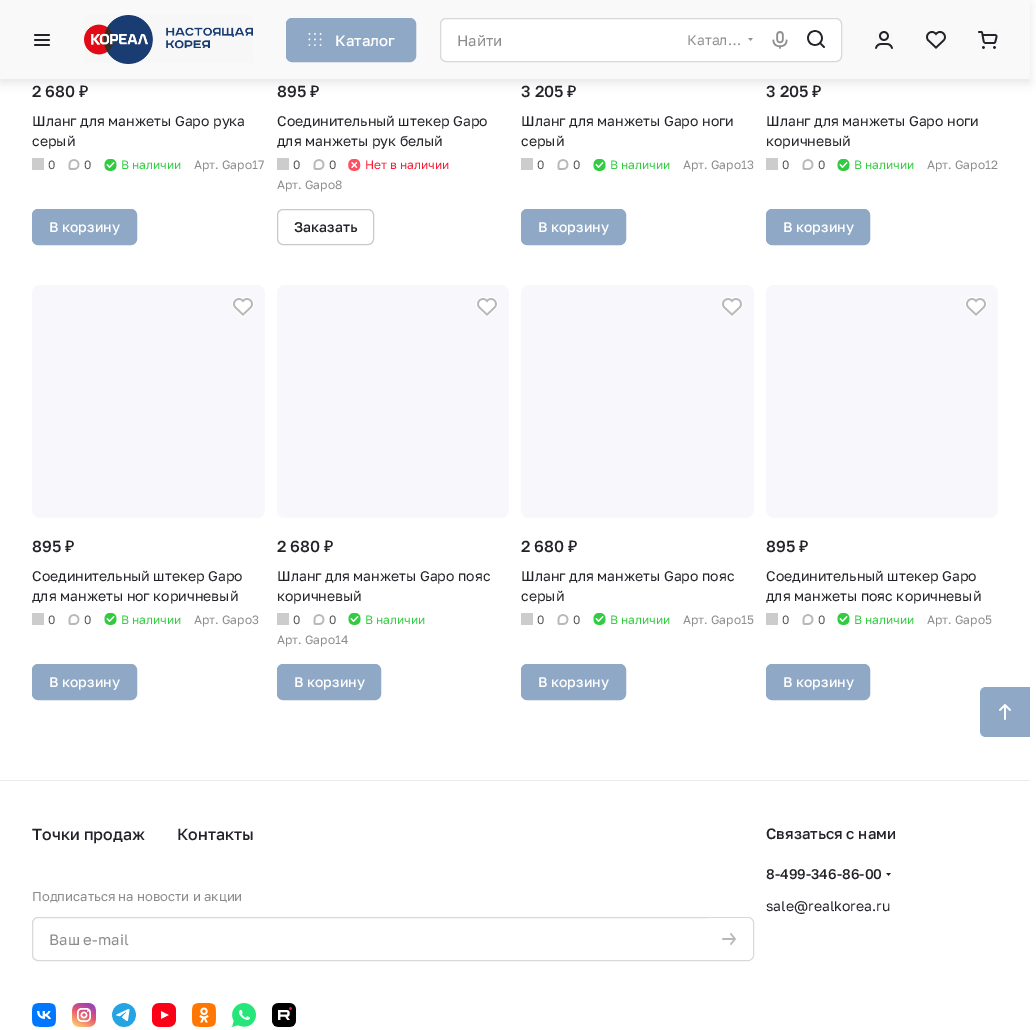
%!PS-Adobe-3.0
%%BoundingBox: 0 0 1036 1030
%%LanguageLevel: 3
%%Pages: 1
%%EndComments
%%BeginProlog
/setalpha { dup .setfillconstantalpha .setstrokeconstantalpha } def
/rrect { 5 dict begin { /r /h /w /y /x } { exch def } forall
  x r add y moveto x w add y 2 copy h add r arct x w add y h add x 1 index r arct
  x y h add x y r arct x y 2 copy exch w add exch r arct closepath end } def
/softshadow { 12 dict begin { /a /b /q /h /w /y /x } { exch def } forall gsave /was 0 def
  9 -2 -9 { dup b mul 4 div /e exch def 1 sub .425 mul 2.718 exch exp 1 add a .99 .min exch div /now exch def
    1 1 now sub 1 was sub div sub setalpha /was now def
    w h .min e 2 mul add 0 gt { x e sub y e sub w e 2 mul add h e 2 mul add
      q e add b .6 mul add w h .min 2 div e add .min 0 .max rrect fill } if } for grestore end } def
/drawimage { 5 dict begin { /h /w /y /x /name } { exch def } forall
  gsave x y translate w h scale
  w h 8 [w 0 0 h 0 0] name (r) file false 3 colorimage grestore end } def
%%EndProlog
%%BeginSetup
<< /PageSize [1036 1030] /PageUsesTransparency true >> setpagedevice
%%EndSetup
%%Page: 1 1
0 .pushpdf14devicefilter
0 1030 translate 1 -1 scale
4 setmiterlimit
1 setgray
0 0 1036 1030 rectfill
0.976 setgray
0 0 1030 79 rectfill
gsave
newpath 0 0 moveto 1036 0 lineto 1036 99 lineto 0 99 lineto closepath 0 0 moveto 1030 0 lineto 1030 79 lineto 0 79 lineto closepath eoclip newpath
0 setgray
0 4 1030 79 0 5 0.1 softshadow
grestore
(images/1.raw) 34 34 16 12 drawimage
(images/2.raw) 84 15 169 49 drawimage
0.561 0.659 0.773 setrgbcolor
286.5 18.5 129 43 5.5 rrect gsave fill grestore
stroke
(images/3.raw) 308 33 14 13 drawimage
1 setgray
440.5 18.5 401 43 5.5 rrect gsave fill grestore
0.843 0.847 0.855 setrgbcolor
stroke
(images/4.raw) 748 38 5 3 drawimage
(images/5.raw) 772 31 16 18 drawimage
(images/6.raw) 807 30 18 18 drawimage
(images/7.raw) 875 31 18 18 drawimage
(images/8.raw) 926 31 20 18 drawimage
(images/9.raw) 978 31 20 18 drawimage
0.8 setgray
32 158 12 12 rectfill
(images/10.raw) 68 159 12 11 drawimage
(images/11.raw) 104 159 13 12 drawimage
0.561 0.659 0.773 setrgbcolor
32.5 209.5 104 35 5.5 rrect gsave fill grestore
stroke
0.8 setgray
277 158 12 12 rectfill
(images/10.raw) 313 159 12 11 drawimage
(images/12.raw) 348 159 13 12 drawimage
0.788 0.788 0.792 setrgbcolor
277.5 209.5 96 35 5.5 rrect stroke
0.8 setgray
521 158 12 12 rectfill
(images/10.raw) 557 159 12 11 drawimage
(images/11.raw) 593 159 13 12 drawimage
0.561 0.659 0.773 setrgbcolor
521.5 209.5 104 35 5.5 rrect gsave fill grestore
stroke
0.8 setgray
766 158 12 12 rectfill
(images/10.raw) 802 159 12 11 drawimage
(images/11.raw) 837 159 13 12 drawimage
0.561 0.659 0.773 setrgbcolor
766.5 209.5 103 35 5.5 rrect gsave fill grestore
stroke
0.973 0.973 0.988 setrgbcolor
32 285 233 233 8 rrect fill
(images/13.raw) 232 297 22 20 drawimage
(images/14.raw) 233 298 20 18 drawimage
0.8 setgray
32 613 12 12 rectfill
(images/10.raw) 68 614 12 11 drawimage
(images/11.raw) 104 613 13 12 drawimage
0.561 0.659 0.773 setrgbcolor
32.5 664.5 104 35 5.5 rrect gsave fill grestore
stroke
0.973 0.973 0.988 setrgbcolor
277 285 232 233 8 rrect fill
(images/13.raw) 476 297 22 20 drawimage
(images/14.raw) 477 298 20 18 drawimage
0.8 setgray
277 613 12 12 rectfill
(images/10.raw) 313 614 12 11 drawimage
(images/11.raw) 348 613 13 12 drawimage
0.561 0.659 0.773 setrgbcolor
277.5 664.5 103 35 5.5 rrect gsave fill grestore
stroke
0.973 0.973 0.988 setrgbcolor
521 285 233 233 8 rrect fill
(images/13.raw) 721 297 22 20 drawimage
(images/14.raw) 722 298 20 18 drawimage
0.8 setgray
521 613 12 12 rectfill
(images/10.raw) 557 614 12 11 drawimage
(images/11.raw) 593 613 13 12 drawimage
0.561 0.659 0.773 setrgbcolor
521.5 664.5 104 35 5.5 rrect gsave fill grestore
stroke
0.973 0.973 0.988 setrgbcolor
766 285 232 233 8 rrect fill
(images/13.raw) 965 297 22 20 drawimage
(images/14.raw) 966 298 20 18 drawimage
0.8 setgray
766 613 12 12 rectfill
(images/10.raw) 802 614 12 11 drawimage
(images/11.raw) 837 613 13 12 drawimage
0.561 0.659 0.773 setrgbcolor
766.5 664.5 103 35 5.5 rrect gsave fill grestore
stroke
0.922 0.922 0.933 setrgbcolor
0 780 1030 1 rectfill
0.843 0.847 0.855 setrgbcolor
32.5 917.5 721 43 5.5 rrect stroke
1 setgray
705 918 48 42 6 rrect fill
(images/15.raw) 722 933 14 12 drawimage
(images/16.raw) 32 1003 24 24 drawimage
(images/17.raw) 72 1003 24 24 drawimage
(images/18.raw) 112 1003 24 24 drawimage
(images/19.raw) 152 1003 24 24 drawimage
(images/20.raw) 192 1003 24 24 drawimage
(images/21.raw) 232 1003 24 24 drawimage
(images/22.raw) 272 1003 24 24 drawimage
(images/23.raw) 886 873 5 3 drawimage
0.561 0.659 0.773 setrgbcolor
newpath 986 687 moveto 1030 687 lineto 1030 737 lineto 986 737 lineto 982.5 737 980 734.5 980 731 curveto 980 693 lineto 980 689.5 982.5 687 986 687 curveto closepath fill
(images/24.raw) 999 704 12 16 drawimage
/GolosText-Medium [15 0 0 -15 0 0] selectfont
1 setgray
335 46 moveto (Каталог) show
/GolosText-Regular [15 0 0 -15 0 0] selectfont
0.553 setgray
457 46 moveto (Найти) show
/GolosText-Regular [14 0 0 -14 0 0] selectfont
0.569 0.569 0.58 setrgbcolor
687 45 moveto (Катал…) show
/GolosText-Medium [16 0 0 -16 0 0] selectfont
0.133 0.133 0.157 setrgbcolor
32 97 moveto (2 680) show
/NotoSans-Medium [16 0 0 -16 0 0] selectfont
79 97 moveto (₽) show
/GolosText-Regular [14 0 0 -14 0 0] selectfont
32 126 moveto (Шланг для манжеты Gapo рука) show
32 146 moveto (серый) show
/GolosText-Regular [12 0 0 -12 0 0] selectfont
0.333 0.333 0.345 setrgbcolor
48 169 moveto (0) show
84 169 moveto (0) show
0.196 0.796 0.255 setrgbcolor
121 169 moveto (В наличии) show
0.553 setgray
194 169 moveto (Арт. Gapo17) show
/GolosText-Medium [14 0 0 -14 0 0] selectfont
1 setgray
49 232 moveto (В корзину) show
/GolosText-Medium [16 0 0 -16 0 0] selectfont
0.133 0.133 0.157 setrgbcolor
277 97 moveto (895) show
/NotoSans-Medium [16 0 0 -16 0 0] selectfont
310 97 moveto (₽) show
/GolosText-Regular [14 0 0 -14 0 0] selectfont
277 126 moveto (Соединительный штекер Gapo) show
gsave
277 111 232 40 rectclip
277 146 moveto (для манжеты рук белый) show
grestore
/GolosText-Regular [12 0 0 -12 0 0] selectfont
0.333 0.333 0.345 setrgbcolor
293 169 moveto (0) show
329 169 moveto (0) show
0.976 0.102 0.208 setrgbcolor
365 169 moveto (Нет в наличии) show
0.553 setgray
277 189 moveto (Арт. Gapo8) show
/GolosText-Medium [14 0 0 -14 0 0] selectfont
0.133 0.133 0.157 setrgbcolor
294 232 moveto (Заказать) show
/GolosText-Medium [16 0 0 -16 0 0] selectfont
521 97 moveto (3 205) show
/NotoSans-Medium [16 0 0 -16 0 0] selectfont
567 97 moveto (₽) show
/GolosText-Regular [14 0 0 -14 0 0] selectfont
521 126 moveto (Шланг для манжеты Gapo ноги) show
521 146 moveto (серый) show
/GolosText-Regular [12 0 0 -12 0 0] selectfont
0.333 0.333 0.345 setrgbcolor
537 169 moveto (0) show
573 169 moveto (0) show
0.196 0.796 0.255 setrgbcolor
610 169 moveto (В наличии) show
0.553 setgray
683 169 moveto (Арт. Gapo13) show
/GolosText-Medium [14 0 0 -14 0 0] selectfont
1 setgray
538 232 moveto (В корзину) show
/GolosText-Medium [16 0 0 -16 0 0] selectfont
0.133 0.133 0.157 setrgbcolor
766 97 moveto (3 205) show
/NotoSans-Medium [16 0 0 -16 0 0] selectfont
812 97 moveto (₽) show
/GolosText-Regular [14 0 0 -14 0 0] selectfont
766 126 moveto (Шланг для манжеты Gapo ноги) show
766 146 moveto (коричневый) show
/GolosText-Regular [12 0 0 -12 0 0] selectfont
0.333 0.333 0.345 setrgbcolor
782 169 moveto (0) show
818 169 moveto (0) show
0.196 0.796 0.255 setrgbcolor
854 169 moveto (В наличии) show
0.553 setgray
927 169 moveto (Арт. Gapo12) show
/GolosText-Medium [14 0 0 -14 0 0] selectfont
1 setgray
783 232 moveto (В корзину) show
/GolosText-Medium [16 0 0 -16 0 0] selectfont
0.133 0.133 0.157 setrgbcolor
32 552 moveto (895) show
/NotoSans-Medium [16 0 0 -16 0 0] selectfont
65 552 moveto (₽) show
/GolosText-Regular [14 0 0 -14 0 0] selectfont
32 581 moveto (Соединительный штекер Gapo) show
32 601 moveto (для манжеты ног коричневый) show
/GolosText-Regular [12 0 0 -12 0 0] selectfont
0.333 0.333 0.345 setrgbcolor
48 624 moveto (0) show
84 624 moveto (0) show
0.196 0.796 0.255 setrgbcolor
121 624 moveto (В наличии) show
0.553 setgray
194 624 moveto (Арт. Gapo3) show
/GolosText-Medium [14 0 0 -14 0 0] selectfont
1 setgray
49 687 moveto (В корзину) show
/GolosText-Medium [16 0 0 -16 0 0] selectfont
0.133 0.133 0.157 setrgbcolor
277 552 moveto (2 680) show
/NotoSans-Medium [16 0 0 -16 0 0] selectfont
324 552 moveto (₽) show
/GolosText-Regular [14 0 0 -14 0 0] selectfont
277 581 moveto (Шланг для манжеты Gapo пояс) show
277 601 moveto (коричневый) show
/GolosText-Regular [12 0 0 -12 0 0] selectfont
0.333 0.333 0.345 setrgbcolor
293 624 moveto (0) show
329 624 moveto (0) show
0.196 0.796 0.255 setrgbcolor
365 624 moveto (В наличии) show
0.553 setgray
277 644 moveto (Арт. Gapo14) show
/GolosText-Medium [14 0 0 -14 0 0] selectfont
1 setgray
294 687 moveto (В корзину) show
/GolosText-Medium [16 0 0 -16 0 0] selectfont
0.133 0.133 0.157 setrgbcolor
521 552 moveto (2 680) show
/NotoSans-Medium [16 0 0 -16 0 0] selectfont
568 552 moveto (₽) show
/GolosText-Regular [14 0 0 -14 0 0] selectfont
521 581 moveto (Шланг для манжеты Gapo пояс) show
521 601 moveto (серый) show
/GolosText-Regular [12 0 0 -12 0 0] selectfont
0.333 0.333 0.345 setrgbcolor
537 624 moveto (0) show
573 624 moveto (0) show
0.196 0.796 0.255 setrgbcolor
610 624 moveto (В наличии) show
0.553 setgray
683 624 moveto (Арт. Gapo15) show
/GolosText-Medium [14 0 0 -14 0 0] selectfont
1 setgray
538 687 moveto (В корзину) show
/GolosText-Medium [16 0 0 -16 0 0] selectfont
0.133 0.133 0.157 setrgbcolor
766 552 moveto (895) show
/NotoSans-Medium [16 0 0 -16 0 0] selectfont
799 552 moveto (₽) show
/GolosText-Regular [14 0 0 -14 0 0] selectfont
766 581 moveto (Соединительный штекер Gapo) show
gsave
766 566 232 40 rectclip
766 601 moveto (для манжеты пояс коричневый) show
grestore
/GolosText-Regular [12 0 0 -12 0 0] selectfont
0.333 0.333 0.345 setrgbcolor
782 624 moveto (0) show
818 624 moveto (0) show
0.196 0.796 0.255 setrgbcolor
854 624 moveto (В наличии) show
0.553 setgray
927 624 moveto (Арт. Gapo5) show
/GolosText-Medium [14 0 0 -14 0 0] selectfont
1 setgray
783 687 moveto (В корзину) show
/GolosText-Medium [16 0 0 -16 0 0] selectfont
0.133 0.133 0.157 setrgbcolor
32 840 moveto (Точки продаж) show
177 840 moveto (Контакты) show
/GolosText-Regular [13 0 0 -13 0 0] selectfont
0.553 setgray
32 901 moveto (Подписаться на новости и акции) show
/GolosText-Regular [15 0 0 -15 0 0] selectfont
49 945 moveto (Ваш e-mail) show
/GolosText-Medium [15 0 0 -15 0 0] selectfont
0.133 0.133 0.157 setrgbcolor
766 839 moveto (Связаться с нами) show
/GolosText-Medium [14 0 0 -14 0 0] selectfont
766 879 moveto (8-499-346-86-00) show
/GolosText-Regular [14 0 0 -14 0 0] selectfont
766 911 moveto (sale@realkorea.ru) show
.poppdf14devicefilter showpage
%%EOF
